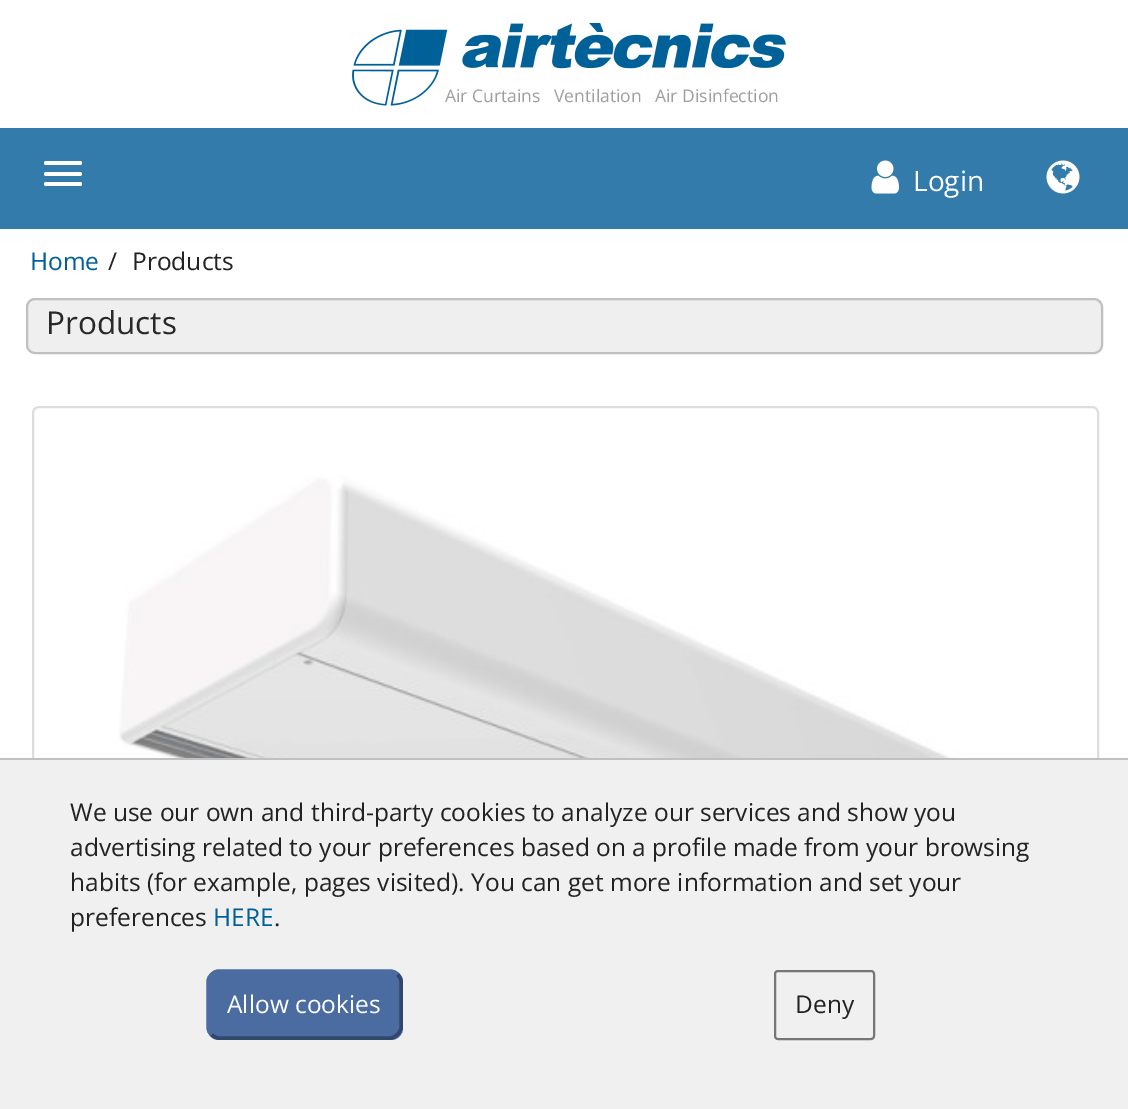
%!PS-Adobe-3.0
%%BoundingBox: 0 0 1128 1109
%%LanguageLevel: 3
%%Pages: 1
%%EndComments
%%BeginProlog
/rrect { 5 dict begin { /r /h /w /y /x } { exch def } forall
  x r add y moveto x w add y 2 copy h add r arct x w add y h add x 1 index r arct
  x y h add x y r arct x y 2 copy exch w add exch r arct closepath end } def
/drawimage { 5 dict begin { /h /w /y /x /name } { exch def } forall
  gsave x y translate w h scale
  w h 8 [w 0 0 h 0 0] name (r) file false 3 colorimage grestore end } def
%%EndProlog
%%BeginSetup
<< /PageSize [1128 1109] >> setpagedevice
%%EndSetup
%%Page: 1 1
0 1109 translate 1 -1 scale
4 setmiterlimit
1 setgray
0 0 1128 1109 rectfill
(images/1.raw) 352 23 434 83 drawimage
0.196 0.482 0.667 setrgbcolor
0 128 1128 101 rectfill
1 setgray
44 161 38 4 2 rrect fill
44 172 38 4 2 rrect fill
44 182 38 4 2 rrect fill
(images/2.raw) 871 160 28 34 drawimage
(images/3.raw) 1046 160 34 34 drawimage
0.937 setgray
27 299 1075 54 8 rrect gsave fill grestore
0.753 setgray
2 setlinewidth
stroke
0.867 setgray
33 407 1065 611 6 rrect stroke
(images/4.raw) 119 475 935 283 drawimage
0.941 setgray
0 760 1128 349 rectfill
0.753 setgray
0 758 1128 2 rectfill
0.294 0.424 0.631 setrgbcolor
207 970 196 70 12 rrect fill
0.196 0.282 0.42 setrgbcolor
3.5 setlinewidth
newpath 397.5 974.5 moveto 399.5 976.5 401 979 401 982 curveto 401 1027 lineto 401 1030 399.5 1032.5 397.5 1034.5 curveto 395.5 1036.5 393 1038 390 1038 curveto 219 1038 lineto 216 1038 213.5 1036.5 211.5 1034.5 curveto stroke
0.294 0.424 0.631 setrgbcolor
newpath 211.5 1034.5 moveto 209.5 1032.5 208 1030 208 1027 curveto 208 982 lineto 208 979 209.5 976.5 211.5 974.5 curveto 213.5 972.5 216 971 219 971 curveto 390 971 lineto 393 971 395.5 972.5 397.5 974.5 curveto stroke
0.463 setgray
2 setlinewidth
775 971 99 68 3 rrect stroke
/OpenSans-Regular [17.5 0 0 -17.5 0 0] selectfont
0.62 setgray
445 102 moveto (Air Curtains) show
554 102 moveto (Ventilation) show
655 102 moveto (Air Disinfection) show
/OpenSans-Regular [28 0 0 -28 0 0] selectfont
1 setgray
913 191 moveto (Login) show
/OpenSans-Regular [24.5 0 0 -24.5 0 0] selectfont
0 0.376 0.596 setrgbcolor
30 270 moveto (Home) show
0.133 setgray
108 270 moveto (/) show
132 270 moveto (Products) show
/OpenSans-Regular [31.5 0 0 -31.5 0 0] selectfont
0.161 setgray
46 334 moveto (Products) show
/OpenSans-Regular [24.5 0 0 -24.5 0 0] selectfont
0.133 setgray
70 821 moveto (We use our own and third-party cookies to analyze our services and show you) show
70 856 moveto (advertising related to your preferences based on a profile made from your browsing) show
70 891 moveto (habits \(for example, pages visited\). You can get more information and set your) show
70 926 moveto (preferences) show
0 0.376 0.596 setrgbcolor
213 926 moveto (HERE) show
0.133 setgray
274 926 moveto (.) show
1 setgray
227 1013 moveto (Allow cookies) show
0.133 setgray
795 1013 moveto (Deny) show
showpage
%%EOF
